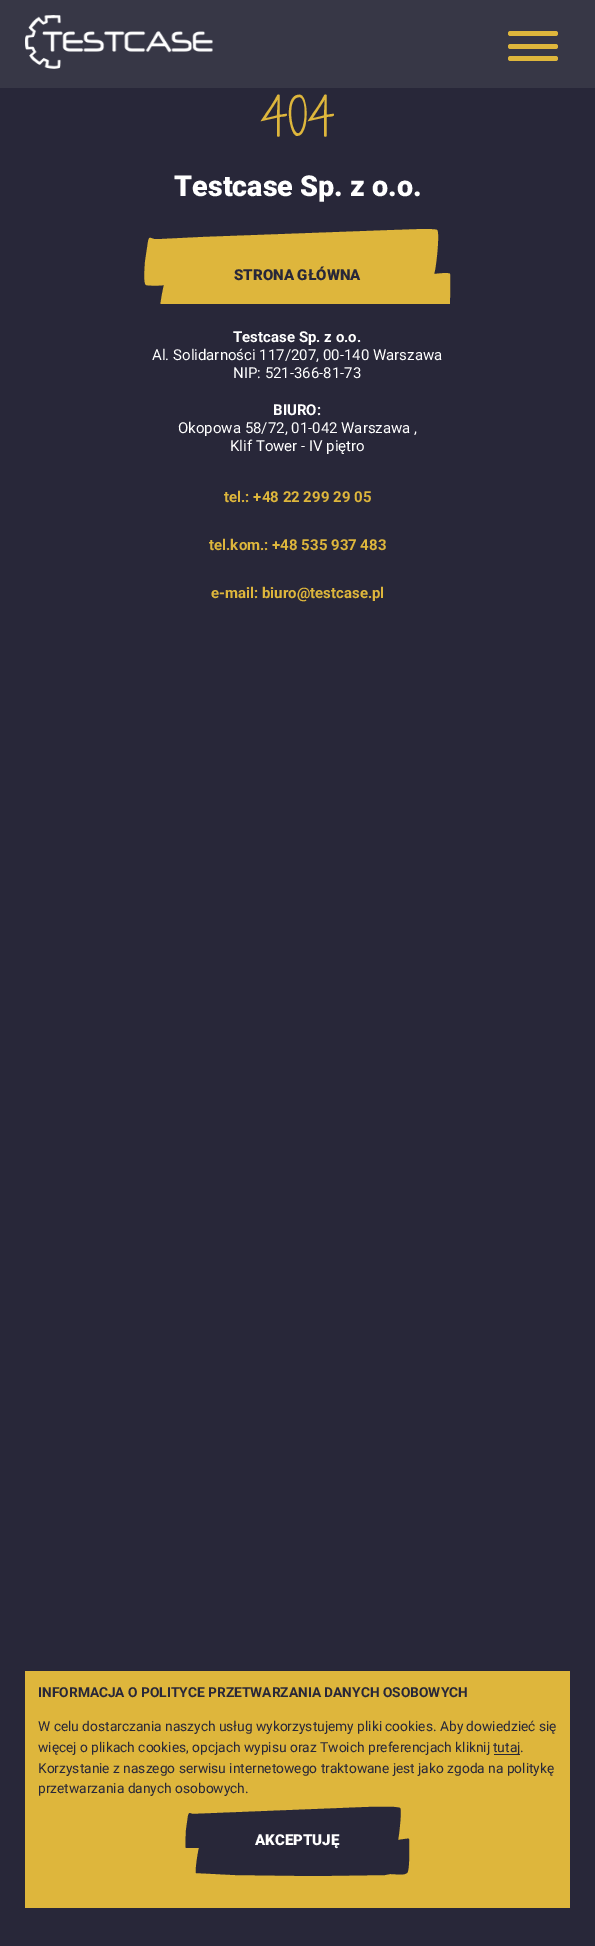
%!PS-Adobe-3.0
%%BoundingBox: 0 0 595 1946
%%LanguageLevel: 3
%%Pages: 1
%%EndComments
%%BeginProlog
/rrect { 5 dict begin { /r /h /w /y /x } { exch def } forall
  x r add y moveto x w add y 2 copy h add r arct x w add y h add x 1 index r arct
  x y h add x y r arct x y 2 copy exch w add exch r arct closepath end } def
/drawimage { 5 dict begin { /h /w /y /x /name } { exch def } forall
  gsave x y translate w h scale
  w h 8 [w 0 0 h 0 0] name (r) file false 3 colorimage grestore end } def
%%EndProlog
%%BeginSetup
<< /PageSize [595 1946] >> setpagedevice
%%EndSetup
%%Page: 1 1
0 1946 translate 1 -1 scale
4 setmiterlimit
0.157 0.153 0.224 setrgbcolor
0 0 595 1946 rectfill
0.216 0.216 0.275 setrgbcolor
0 0 595 88 rectfill
(images/1.raw) 25 15 188 54 drawimage
0.871 0.714 0.235 setrgbcolor
508 31 50 5 2.5 rrect fill
508 44 50 5 2.5 rrect fill
508 56 50 5 2.5 rrect fill
newpath 450 274 moveto 449 272 436 274 434 274 curveto 436 269 440 232 437 230 curveto 433 228 401 230 394 230 curveto 203 237 lineto 162 239 lineto 154 239 lineto 150 238 149 236 148 242 curveto 145 262 lineto 145 265 143 283 146 285 curveto 152 286 158 286 164 285 curveto 161 297 158 319 160 320 curveto 168 321 lineto 212 322 lineto 320 323 lineto 417 322 lineto 424 321 lineto 431 320 438 323 444 321 curveto 447 320 lineto 451 315 450 281 450 274 curveto closepath fill
0.157 0.153 0.224 setrgbcolor
159 304 291 19 rectfill
0.871 0.714 0.235 setrgbcolor
25 1671 545 237 rectfill
0.157 0.153 0.224 setrgbcolor
494 1754 26 1 rectfill
newpath 409 1839 moveto 409 1838 399 1840 398 1840 curveto 399 1836 402 1809 400 1808 curveto 396 1806 374 1807 368 1807 curveto 192 1814 lineto 190 1813 189 1812 188 1816 curveto 186 1830 lineto 186 1833 185 1847 186 1848 curveto 199 1848 lineto 197 1856 195 1873 196 1873 curveto 235 1875 lineto 314 1876 lineto 385 1875 lineto 390 1874 lineto 395 1874 400 1875 405 1874 curveto 407 1873 lineto 410 1870 409 1845 409 1839 curveto closepath fill
/ShadowsIntoLightTwo-Light [50 0 0 -50 0 0] selectfont
0.871 0.714 0.235 setrgbcolor
260 136 moveto (404) show
/Roboto-Black [28.75 0 0 -28.75 0 0] selectfont
1 setgray
174 196 moveto (Testcase Sp. z o.o.) show
/Roboto-Black [15 0 0 -15 0 0] selectfont
0.157 0.153 0.224 setrgbcolor
234 280 moveto (STRONA GŁÓWNA) show
/Roboto-Bold [15 0 0 -15 0 0] selectfont
1 setgray
233 342 moveto (Testcase Sp. z o.o.) show
/Roboto-Regular [15 0 0 -15 0 0] selectfont
152 360 moveto (Al. Solidarności 117/207, 00-140 Warszawa) show
233 378 moveto (NIP: 521-366-81-73) show
/Roboto-Bold [15 0 0 -15 0 0] selectfont
273 415 moveto (BIURO:) show
/Roboto-Regular [15 0 0 -15 0 0] selectfont
178 433 moveto (Okopowa 58/72, 01-042 Warszawa ,) show
230 451 moveto (Klif Tower - IV piętro) show
/Roboto-Bold [15 0 0 -15 0 0] selectfont
0.871 0.714 0.235 setrgbcolor
224 502 moveto (tel.: +48 22 299 29 05) show
209 550 moveto (tel.kom.: +48 535 937 483) show
211 598 moveto (e-mail: biuro@testcase.pl) show
/Roboto-Bold [13.75 0 0 -13.75 0 0] selectfont
0.157 0.153 0.224 setrgbcolor
38 1697 moveto (INFORMACJA O POLITYCE PRZETWARZANIA DANYCH OSOBOWYCH) show
/Roboto-Regular [13.75 0 0 -13.75 0 0] selectfont
38 1731 moveto (W celu dostarczania naszych usług wykorzystujemy pliki cookies. Aby dowiedzieć się) show
38 1752 moveto (więcej o plikach cookies, opcjach wypisu oraz Twoich preferencjach kliknij) show
493 1752 moveto (tutaj.) show
38 1773 moveto (Korzystanie z naszego serwisu internetowego traktowane jest jako zgoda na politykę) show
38 1793 moveto (przetwarzania danych osobowych.) show
/Roboto-Black [15 0 0 -15 0 0] selectfont
1 setgray
255 1845 moveto (AKCEPTUJĘ) show
showpage
%%EOF
